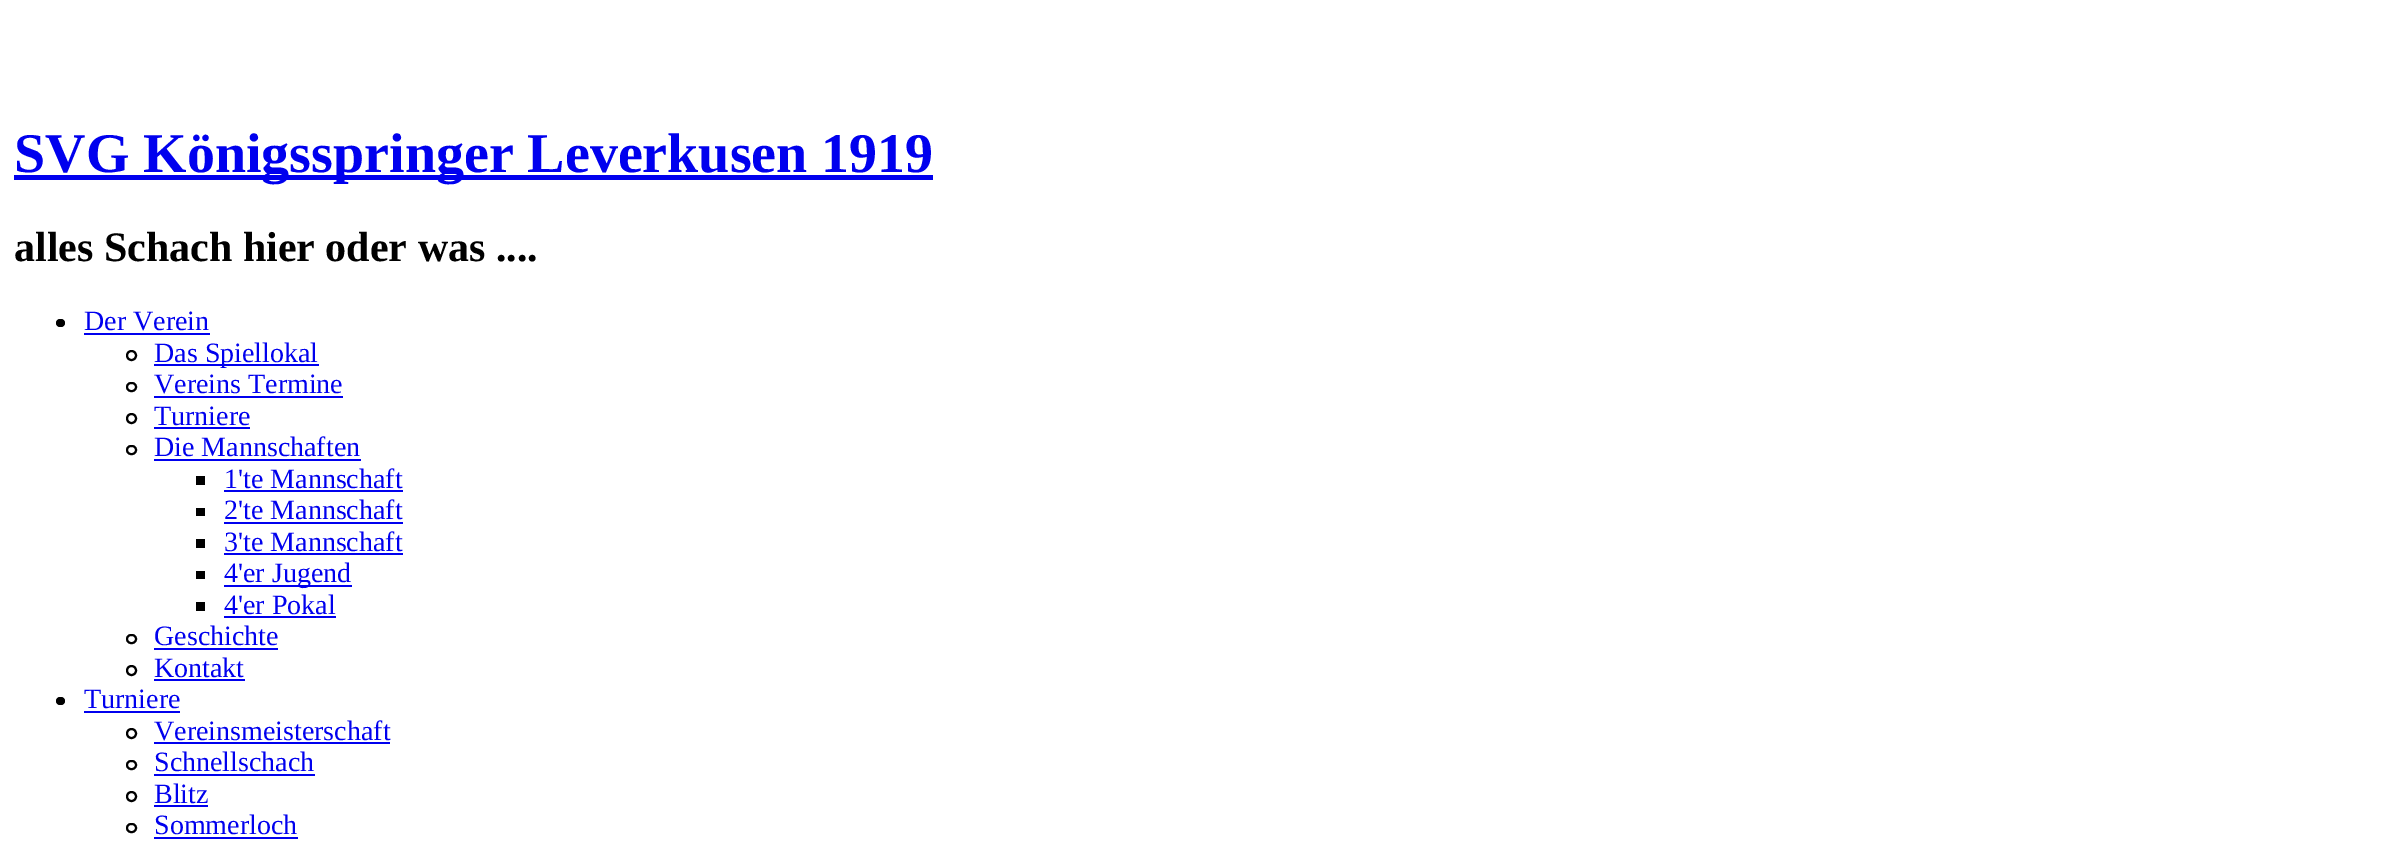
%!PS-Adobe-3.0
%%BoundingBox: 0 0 2387 842
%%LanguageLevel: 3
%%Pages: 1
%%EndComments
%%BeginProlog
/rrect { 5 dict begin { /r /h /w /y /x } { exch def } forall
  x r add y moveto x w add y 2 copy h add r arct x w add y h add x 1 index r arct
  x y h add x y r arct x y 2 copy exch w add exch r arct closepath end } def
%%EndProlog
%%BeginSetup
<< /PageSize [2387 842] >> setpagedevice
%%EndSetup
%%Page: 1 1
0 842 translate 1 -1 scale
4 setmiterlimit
1 setgray
0 0 2387 842 rectfill
0 0 0.933 setrgbcolor
14 175 919 5 rectfill
0 setgray
56 319 9 8 4 rrect fill
0 0 0.933 setrgbcolor
84 333 126 2 rectfill
0 setgray
2 setlinewidth
newpath 131.5 355.5 4.5 0 360 arc closepath stroke
0 0 0.933 setrgbcolor
154 364 165 2 rectfill
0 setgray
127 383 9 8 4 rrect stroke
0 0 0.933 setrgbcolor
154 396 189 2 rectfill
0 setgray
newpath 131.5 418.5 4.5 0 360 arc closepath stroke
0 0 0.933 setrgbcolor
154 427 96 2 rectfill
0 setgray
127 446 9 8 4 rrect stroke
0 0 0.933 setrgbcolor
154 459 207 2 rectfill
0 setgray
196 476 9 9 rectfill
0 0 0.933 setrgbcolor
224 490 179 2 rectfill
0 setgray
196 508 9 8 rectfill
0 0 0.933 setrgbcolor
224 522 179 2 rectfill
0 setgray
196 539 9 9 rectfill
0 0 0.933 setrgbcolor
224 553 179 2 rectfill
0 setgray
196 571 9 8 rectfill
0 0 0.933 setrgbcolor
224 585 128 2 rectfill
0 setgray
196 602 9 9 rectfill
0 0 0.933 setrgbcolor
224 616 112 2 rectfill
0 setgray
127 635 9 8 4 rrect stroke
0 0 0.933 setrgbcolor
154 648 124 2 rectfill
0 setgray
newpath 131.5 670.5 4.5 0 360 arc closepath stroke
0 0 0.933 setrgbcolor
154 679 91 2 rectfill
0 setgray
56 697 9 8 4 rrect fill
0 0 0.933 setrgbcolor
84 711 96 2 rectfill
0 setgray
newpath 131.5 733.5 4.5 0 360 arc closepath stroke
0 0 0.933 setrgbcolor
154 742 236 2 rectfill
0 setgray
127 761 9 8 4 rrect stroke
0 0 0.933 setrgbcolor
154 774 161 2 rectfill
0 setgray
newpath 131.5 796.5 4.5 0 360 arc closepath stroke
0 0 0.933 setrgbcolor
154 805 54 2 rectfill
0 setgray
127 824 9 8 4 rrect stroke
0 0 0.933 setrgbcolor
154 837 144 2 rectfill
/LiberationSerif-Bold [56 0 0 -56 0 0] selectfont
14 172 moveto (SVG Königsspringer Leverkusen 1919) show
/LiberationSerif-Bold [42 0 0 -42 0 0] selectfont
0 setgray
14 261 moveto (alles Schach hier oder was ....) show
/LiberationSerif-Regular [28 0 0 -28 0 0] selectfont
0 0 0.933 setrgbcolor
84 330 moveto (Der Verein) show
154 362 moveto (Das Spiellokal) show
154 393 moveto (Vereins Termine) show
154 425 moveto (Turniere) show
154 456 moveto (Die Mannschaften) show
224 488 moveto (1'te Mannschaft) show
224 519 moveto (2'te Mannschaft) show
224 551 moveto (3'te Mannschaft) show
224 582 moveto (4'er Jugend) show
224 614 moveto (4'er Pokal) show
154 645 moveto (Geschichte) show
154 677 moveto (Kontakt) show
84 708 moveto (Turniere) show
154 740 moveto (Vereinsmeisterschaft) show
154 771 moveto (Schnellschach) show
154 803 moveto (Blitz) show
154 834 moveto (Sommerloch) show
showpage
%%EOF
